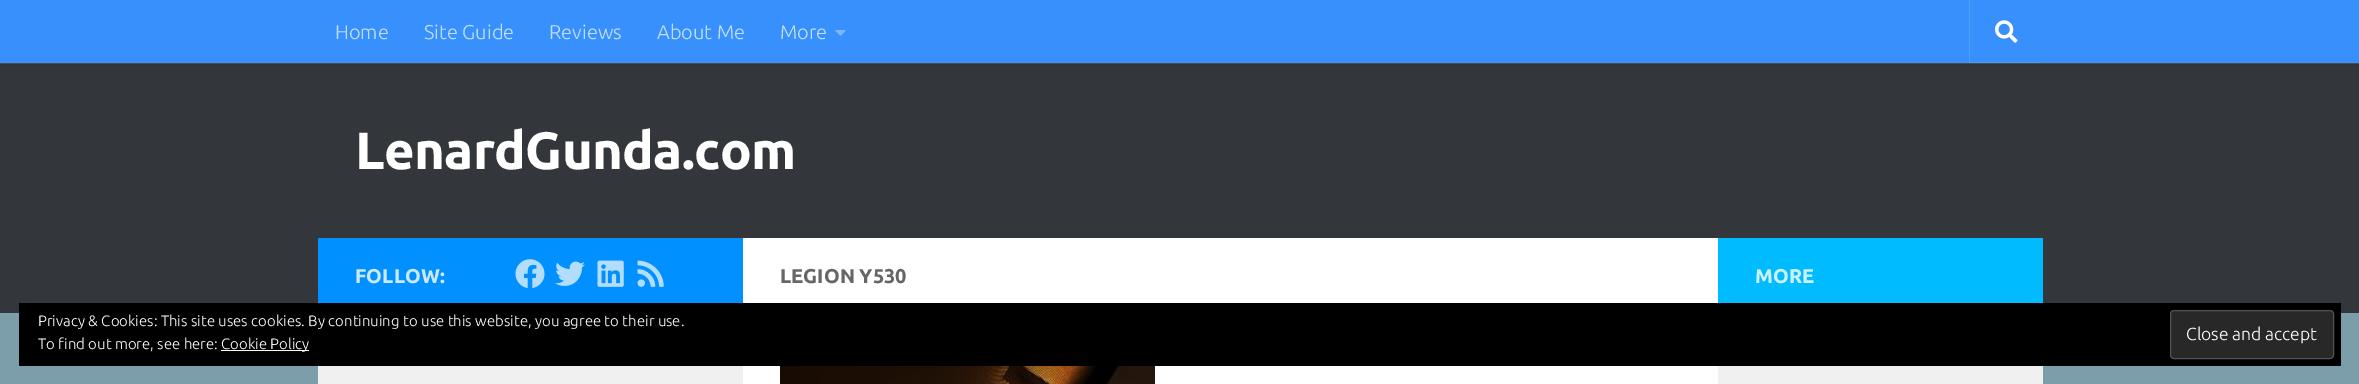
%!PS-Adobe-3.0
%%BoundingBox: 0 0 2359 384
%%LanguageLevel: 3
%%Pages: 1
%%EndComments
%%BeginProlog
/setalpha { dup .setfillconstantalpha .setstrokeconstantalpha } def
/rrect { 5 dict begin { /r /h /w /y /x } { exch def } forall
  x r add y moveto x w add y 2 copy h add r arct x w add y h add x 1 index r arct
  x y h add x y r arct x y 2 copy exch w add exch r arct closepath end } def
/softshadow { 12 dict begin { /a /b /q /h /w /y /x } { exch def } forall gsave /was 0 def
  9 -2 -9 { dup b mul 4 div /e exch def 1 sub .425 mul 2.718 exch exp 1 add a .99 .min exch div /now exch def
    1 1 now sub 1 was sub div sub setalpha /was now def
    w h .min e 2 mul add 0 gt { x e sub y e sub w e 2 mul add h e 2 mul add
      q e add b .6 mul add w h .min 2 div e add .min 0 .max rrect fill } if } for grestore end } def
/drawimage { 5 dict begin { /h /w /y /x /name } { exch def } forall
  gsave x y translate w h scale
  w h 8 [w 0 0 h 0 0] name (r) file false 3 colorimage grestore end } def
%%EndProlog
%%BeginSetup
<< /PageSize [2359 384] /PageUsesTransparency true >> setpagedevice
%%EndSetup
%%Page: 1 1
0 .pushpdf14devicefilter
0 384 translate 1 -1 scale
4 setmiterlimit
0.486 0.616 0.667 setrgbcolor
0 0 2359 384 rectfill
0.2 0.212 0.231 setrgbcolor
0 64 2359 249 rectfill
0.322 0.329 0.345 setrgbcolor
0 63 2359 1 rectfill
0 setgray
0 0 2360 63 0 3 0.2 softshadow
0.22 0.565 0.992 setrgbcolor
0 0 2359 63 rectfill
(images/1.raw) 835 30 11 6 drawimage
0.298 0.608 0.992 setrgbcolor
newpath 1969 0 moveto 1969 63 lineto 2041 63 lineto 2041 62 lineto 1970 62 lineto 1970 0 lineto closepath fill
(images/2.raw) 1995 20 23 23 drawimage
1 setgray
743 238 975 146 rectfill
0 0.565 1 setrgbcolor
318 238 425 65 rectfill
(images/3.raw) 515 259 30 29 drawimage
(images/4.raw) 555 261 30 25 drawimage
(images/5.raw) 597 260 27 27 drawimage
(images/6.raw) 637 260 27 27 drawimage
(images/7.raw) 780 366 375 18 drawimage
0 0.733 1 setrgbcolor
1718 238 325 65 rectfill
0.941 setgray
318 366 425 18 rectfill
1718 366 325 18 rectfill
0 setgray
19 303 2322 63 rectfill
1 setgray
221 350 88 1 rectfill
0.157 setgray
2170.5 310.5 163 48 3.5 rrect gsave fill grestore
0.325 setgray
stroke
/Ubuntu-Light [20 0 0 -20 0 0] selectfont
0.765 0.871 0.996 setrgbcolor
335 39 moveto (Home) show
424 39 moveto (Site Guide) show
549 39 moveto (Reviews) show
657 39 moveto (About Me) show
780 39 moveto (More) show
/Ubuntu-Bold [52.5 0 0 -52.5 0 0] selectfont
1 setgray
355 169 moveto -0.6 0 (LenardGunda.com) ashow
/Ubuntu-Bold [20 0 0 -20 0 0] selectfont
0.8 0.914 1 setrgbcolor
355 283 moveto (FOLLOW:) show
0.4 setgray
780 283 moveto (LEGION Y530) show
0.8 0.945 1 setrgbcolor
1755 283 moveto (MORE) show
/Ubuntu-Light [15 0 0 -15 0 0] selectfont
1 setgray
38 326 moveto (Privacy & Cookies: This site uses cookies. By continuing to use this website, you agree to their use.) show
38 349 moveto (To find out more, see here:) show
221 349 moveto (Cookie Policy) show
/Ubuntu-Light [17.5 0 0 -17.5 0 0] selectfont
2186 340 moveto (Close and accept) show
.poppdf14devicefilter showpage
%%EOF
